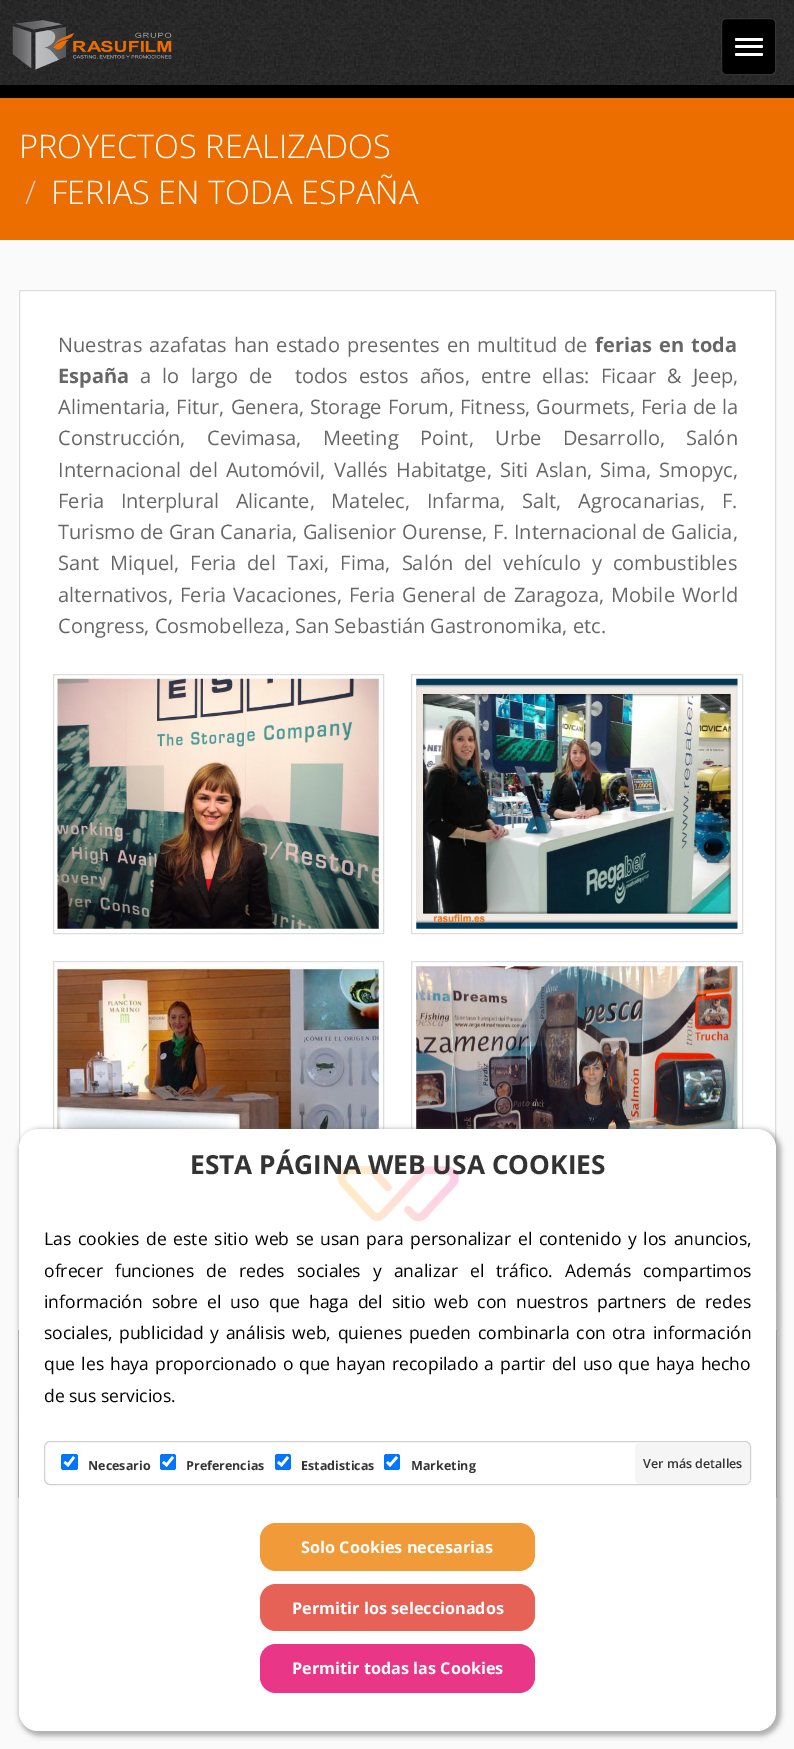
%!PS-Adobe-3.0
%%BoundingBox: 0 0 794 1749
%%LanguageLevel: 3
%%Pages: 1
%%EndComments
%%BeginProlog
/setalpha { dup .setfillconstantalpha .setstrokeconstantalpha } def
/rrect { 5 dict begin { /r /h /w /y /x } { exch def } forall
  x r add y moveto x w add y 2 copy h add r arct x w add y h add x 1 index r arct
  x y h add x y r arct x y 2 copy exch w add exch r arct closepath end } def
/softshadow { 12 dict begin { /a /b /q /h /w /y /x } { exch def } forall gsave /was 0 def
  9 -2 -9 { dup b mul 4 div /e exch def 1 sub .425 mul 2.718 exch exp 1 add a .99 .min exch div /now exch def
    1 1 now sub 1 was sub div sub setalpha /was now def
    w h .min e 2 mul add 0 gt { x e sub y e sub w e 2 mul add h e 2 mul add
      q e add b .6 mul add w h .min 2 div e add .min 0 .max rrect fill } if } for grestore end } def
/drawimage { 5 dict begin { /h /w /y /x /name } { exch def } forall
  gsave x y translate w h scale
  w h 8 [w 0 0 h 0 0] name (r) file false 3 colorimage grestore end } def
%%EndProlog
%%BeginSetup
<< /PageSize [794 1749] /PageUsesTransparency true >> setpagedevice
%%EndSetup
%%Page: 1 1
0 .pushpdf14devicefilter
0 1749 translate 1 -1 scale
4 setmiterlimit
0.98 setgray
0 0 794 1749 rectfill
(images/1.raw) 0 0 794 85 drawimage
0 setgray
0 85 794 13 rectfill
(images/2.raw) 12 20 160 50 drawimage
721.5 18.5 54 56 4.5 rrect gsave fill grestore
0.2 setgray
stroke
1 setgray
735 38 28 3 1.5 rrect fill
735 45 28 3 1.5 rrect fill
735 53 28 3 1.5 rrect fill
0.925 0.431 0 setrgbcolor
0 98 794 142 rectfill
1 setgray
20 291 755 851 rectfill
0.867 setgray
19.5 290.5 756 1002 rectstroke
(images/3.raw) 57 678 322 251 drawimage
53.5 674.5 330 259 rectstroke
(images/4.raw) 416 678 322 251 drawimage
411.5 674.5 331 259 rectstroke
(images/5.raw) 57 966 322 163 drawimage
53.5 961.5 330 259 rectstroke
(images/6.raw) 416 966 322 163 drawimage
411.5 961.5 331 259 rectstroke
(images/7.raw) 18 1330 759 168 drawimage
0.4 setgray
19 1129 762 607 21 2.5 0.5 softshadow
1 setgray
19 1129 757 602 19 rrect fill
(images/8.raw) 337 1166 123 56 drawimage
0.82 setgray
44.5 1441.5 706 43 5.5 rrect stroke
0 0.459 1 setrgbcolor
61 1454 17 16 2.5 rrect fill
1 setgray
2.6 setlinewidth
newpath 64.5 1462 moveto 68 1465 lineto 74 1457 lineto stroke
0 0.459 1 setrgbcolor
160 1454 16 16 2.5 rrect fill
1 setgray
newpath 163 1462 moveto 166.5 1465 lineto 173 1457 lineto stroke
0 0.459 1 setrgbcolor
275 1454 16 16 2.5 rrect fill
1 setgray
newpath 278 1462 moveto 281.5 1465 lineto 288 1457 lineto stroke
0 0.459 1 setrgbcolor
384 1454 16 16 2.5 rrect fill
1 setgray
newpath 387 1462 moveto 390 1465 lineto 397 1457 lineto stroke
0.961 setgray
635 1443 115 41 5 rrect fill
0.945 0.604 0.224 setrgbcolor
260 1523 275 48 16 rrect fill
0.906 0.384 0.337 setrgbcolor
260 1584 275 47 16 rrect fill
0.918 0.212 0.529 setrgbcolor
260 1644 275 49 16 rrect fill
/OpenSans-Light [32.5 0 0 -32.5 0 0] selectfont
1 setgray
19 158 moveto (PROYECTOS REALIZADOS) show
0.8 setgray
25 204 moveto (/) show
1 setgray
51 204 moveto (FERIAS EN TODA ESPAÑA) show
/OpenSans-Regular [20 0 0 -20 0 0] selectfont
0.4 setgray
58 352 moveto 2 0 32 (Nuestras azafatas han estado presentes en multitud de) widthshow
/OpenSans-Bold [20 0 0 -20 0 0] selectfont
595 352 moveto 2 0 32 (ferias en toda) widthshow
58 383 moveto (España) show
/OpenSans-Regular [20 0 0 -20 0 0] selectfont
140 383 moveto 6 0 32 (a lo largo de  todos estos años, entre ellas: Ficaar & Jeep,) widthshow
58 414 moveto 0.75 0 32 (Alimentaria, Fitur, Genera, Storage Forum, Fitness, Gourmets, Feria de la) widthshow
58 445 moveto 16.25 0 32 (Construcción, Cevimasa, Meeting Point, Urbe Desarrollo, Salón) widthshow
58 477 moveto 3 0 32 (Internacional del Automóvil, Vallés Habitatge, Siti Aslan, Sima, Smopyc,) widthshow
58 508 moveto 11.5 0 32 (Feria Interplural Alicante, Matelec, Infarma, Salt, Agrocanarias, F.) widthshow
58 539 moveto 0.25 0 32 (Turismo de Gran Canaria, Galisenior Ourense, F. Internacional de Galicia,) widthshow
58 570 moveto 5.75 0 32 (Sant Miquel, Feria del Taxi, Fima, Salón del vehículo y combustibles) widthshow
58 602 moveto 2 0 32 (alternativos, Feria Vacaciones, Feria General de Zaragoza, Mobile World) widthshow
58 633 moveto (Congress, Cosmobelleza, San Sebastián Gastronomika, etc.) show
/OpenSans-Bold [26.25 0 0 -26.25 0 0] selectfont
0.2 setgray
190 1174 moveto (ESTA PÁGINA WEB USA COOKIES) show
/OpenSans-Regular [17.5 0 0 -17.5 0 0] selectfont
0 setgray
44 1245 moveto 2.25 0 32 (Las cookies de este sitio web se) widthshow
320 1245 moveto 2.25 0 32 (usan para personalizar) widthshow
518 1245 moveto 2.25 0 32 (el contenido y los anuncios,) widthshow
44 1277 moveto 7.5 0 32 (ofrecer funciones de redes sociales y analizar el tráfico. Además) widthshow
643 1277 moveto (compartimos) show
44 1308 moveto 4.4 0 32 (información sobre el uso que haga del sitio web con nuestros partners de redes) widthshow
44 1339 moveto (sociales,) show
119 1339 moveto 2 0 32 (publicidad y análisis web, quienes pueden combinarla con otra información) widthshow
44 1370 moveto 1.5 0 32 (que les haya proporcionado) widthshow
283 1370 moveto (o) show
299 1370 moveto 1.5 0 32 (que hayan recopilado a partir del uso que haya hecho) widthshow
44 1402 moveto (de sus servicios.) show
/OpenSans-Bold [12.5 0 0 -12.5 0 0] selectfont
0.2 setgray
88 1470 moveto (Necesario) show
186 1470 moveto (Preferencias) show
301 1470 moveto (Estadisticas) show
411 1470 moveto (Marketing) show
/OpenSans-SemiBold [12.5 0 0 -12.5 0 0] selectfont
643 1468 moveto (Ver más detalles) show
/OpenSans-Bold [16.25 0 0 -16.25 0 0] selectfont
1 setgray
301 1553 moveto (Solo Cookies necesarias) show
292 1614 moveto (Permitir los seleccionados) show
292 1674 moveto (Permitir todas las Cookies) show
.poppdf14devicefilter showpage
%%EOF
